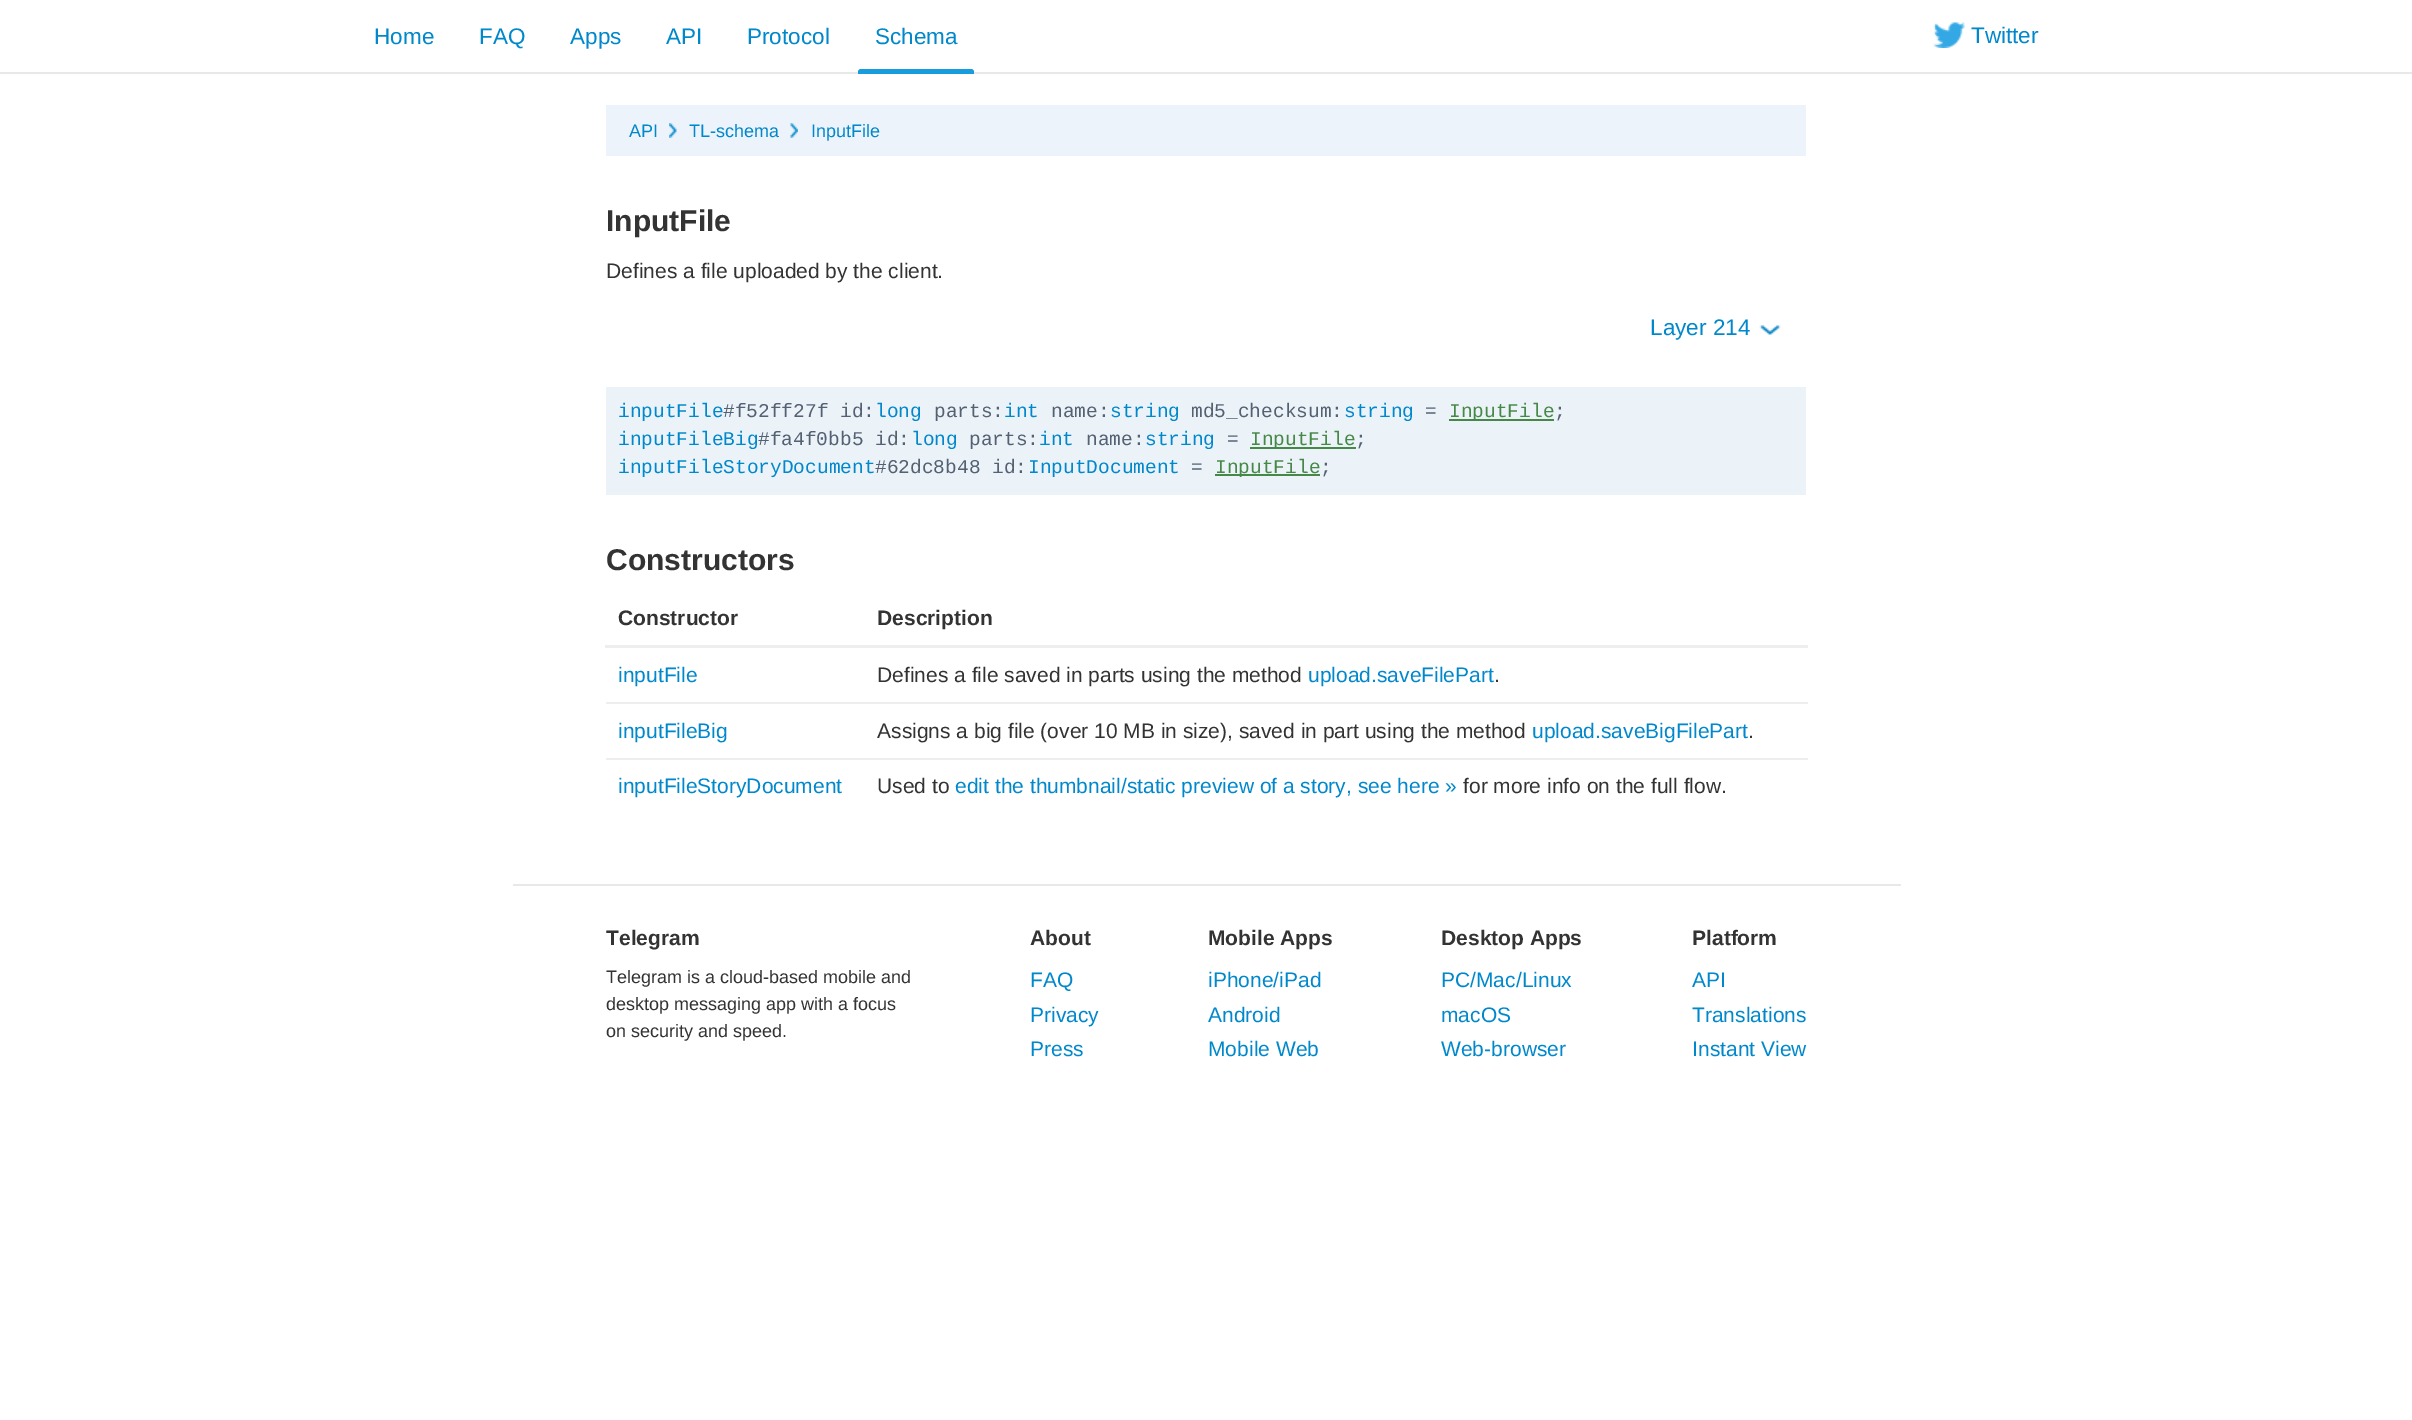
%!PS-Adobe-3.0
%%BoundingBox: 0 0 2412 1420
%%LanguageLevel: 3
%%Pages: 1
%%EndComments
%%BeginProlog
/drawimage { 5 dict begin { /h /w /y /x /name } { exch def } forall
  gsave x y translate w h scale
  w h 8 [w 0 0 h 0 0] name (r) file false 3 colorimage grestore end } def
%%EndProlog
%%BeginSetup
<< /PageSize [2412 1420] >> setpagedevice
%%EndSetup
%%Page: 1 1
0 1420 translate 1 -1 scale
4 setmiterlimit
1 setgray
0 0 2412 1420 rectfill
0.91 setgray
0 72 2412 2 rectfill
0.09 0.612 0.871 setrgbcolor
newpath 861 69 moveto 971 69 lineto 972.5 69 974 70.5 974 72 curveto 974 74 lineto 858 74 lineto 858 72 lineto 858 70.5 859.5 69 861 69 curveto closepath fill
(images/1.raw) 1933 22 32 26 drawimage
0.925 0.953 0.98 setrgbcolor
606 105 1200 51 rectfill
(images/2.raw) 669 123 8 15 drawimage
(images/3.raw) 790 123 8 15 drawimage
(images/4.raw) 1759 325 22 10 drawimage
0.925 0.953 0.973 setrgbcolor
606 387 1200 108 rectfill
0.275 0.533 0.278 setrgbcolor
1449 419 105 2 rectfill
1250 447 106 2 rectfill
1215 474 105 2 rectfill
0.933 setgray
605 645 1203 3 rectfill
606 702 1202 2 rectfill
606 758 1202 2 rectfill
0.91 setgray
513 884 1388 2 rectfill
/LiberationSans-Regular [22.5 0 0 -22.5 0 0] selectfont
0 0.533 0.8 setrgbcolor
374 44 moveto (Home) show
479 44 moveto (FAQ) show
570 44 moveto (Apps) show
666 44 moveto (API) show
747 44 moveto (Protocol) show
875 44 moveto (Schema) show
1971 43 moveto (Twitter) show
/LiberationSans-Regular [18 0 0 -18 0 0] selectfont
629 137 moveto (API) show
689 137 moveto (TL-schema) show
811 137 moveto (InputFile) show
/LiberationSans-Bold [30 0 0 -30 0 0] selectfont
0.2 setgray
606 231 moveto (InputFile) show
/LiberationSans-Regular [21 0 0 -21 0 0] selectfont
606 278 moveto (Defines a file uploaded by the client.) show
/LiberationSans-Regular [22.5 0 0 -22.5 0 0] selectfont
0 0.533 0.8 setrgbcolor
1650 335 moveto (Layer 214) show
/LiberationMono-Regular [19.5 0 0 -19.5 0 0] selectfont
618 417 moveto (inputFile) show
0.329 0.38 0.447 setrgbcolor
723 417 moveto (#f52ff27f id:) show
0 0.533 0.8 setrgbcolor
875 417 moveto (long) show
0.329 0.38 0.447 setrgbcolor
934 417 moveto (parts:) show
0 0.533 0.8 setrgbcolor
1004 417 moveto (int) show
0.329 0.38 0.447 setrgbcolor
1051 417 moveto (name:) show
0 0.533 0.8 setrgbcolor
1110 417 moveto (string) show
0.329 0.38 0.447 setrgbcolor
1191 417 moveto (md5_checksum:) show
0 0.533 0.8 setrgbcolor
1344 417 moveto (string) show
0.329 0.38 0.447 setrgbcolor
1425 417 moveto (=) show
0.275 0.533 0.278 setrgbcolor
1449 417 moveto (InputFile) show
0.329 0.38 0.447 setrgbcolor
1554 417 moveto (;) show
0 0.533 0.8 setrgbcolor
618 445 moveto (inputFileBig) show
0.329 0.38 0.447 setrgbcolor
758 445 moveto (#fa4f0bb5 id:) show
0 0.533 0.8 setrgbcolor
911 445 moveto (long) show
0.329 0.38 0.447 setrgbcolor
969 445 moveto (parts:) show
0 0.533 0.8 setrgbcolor
1039 445 moveto (int) show
0.329 0.38 0.447 setrgbcolor
1086 445 moveto (name:) show
0 0.533 0.8 setrgbcolor
1145 445 moveto (string) show
0.329 0.38 0.447 setrgbcolor
1227 445 moveto (=) show
0.275 0.533 0.278 setrgbcolor
1250 445 moveto (InputFile) show
0.329 0.38 0.447 setrgbcolor
1355 445 moveto (;) show
0 0.533 0.8 setrgbcolor
618 473 moveto (inputFileStoryDocument) show
0.329 0.38 0.447 setrgbcolor
875 473 moveto (#62dc8b48 id:) show
0 0.533 0.8 setrgbcolor
1028 473 moveto (InputDocument) show
0.329 0.38 0.447 setrgbcolor
1191 473 moveto (=) show
0.275 0.533 0.278 setrgbcolor
1215 473 moveto (InputFile) show
0.329 0.38 0.447 setrgbcolor
1320 473 moveto (;) show
/LiberationSans-Bold [30 0 0 -30 0 0] selectfont
0.2 setgray
606 570 moveto (Constructors) show
/LiberationSans-Bold [21 0 0 -21 0 0] selectfont
618 625 moveto (Constructor) show
877 625 moveto (Description) show
/LiberationSans-Regular [21 0 0 -21 0 0] selectfont
0 0.533 0.8 setrgbcolor
618 682 moveto (inputFile) show
0.2 setgray
877 682 moveto (Defines a file saved in parts using the method) show
0 0.533 0.8 setrgbcolor
1308 682 moveto (upload.saveFilePart) show
0.2 setgray
1494 682 moveto (.) show
0 0.533 0.8 setrgbcolor
618 738 moveto (inputFileBig) show
0.2 setgray
877 738 moveto (Assigns a big file \(over 10 MB in size\), saved in part using the method) show
0 0.533 0.8 setrgbcolor
1532 738 moveto (upload.saveBigFilePart) show
0.2 setgray
1748 738 moveto (.) show
0 0.533 0.8 setrgbcolor
618 793 moveto (inputFileStoryDocument) show
0.2 setgray
877 793 moveto (Used to) show
0 0.533 0.8 setrgbcolor
955 793 moveto (edit the thumbnail/static preview of a story, see here ») show
0.2 setgray
1463 793 moveto (for more info on the full flow.) show
/LiberationSans-Bold [21 0 0 -21 0 0] selectfont
606 945 moveto (Telegram) show
/LiberationSans-Regular [18 0 0 -18 0 0] selectfont
606 983 moveto (Telegram is a cloud-based mobile and) show
606 1010 moveto (desktop messaging app with a focus) show
606 1037 moveto (on security and speed.) show
/LiberationSans-Bold [21 0 0 -21 0 0] selectfont
1030 945 moveto (About) show
/LiberationSans-Regular [21 0 0 -21 0 0] selectfont
0 0.533 0.8 setrgbcolor
1030 987 moveto (FAQ) show
1030 1022 moveto (Privacy) show
1030 1056 moveto (Press) show
/LiberationSans-Bold [21 0 0 -21 0 0] selectfont
0.2 setgray
1208 945 moveto (Mobile Apps) show
/LiberationSans-Regular [21 0 0 -21 0 0] selectfont
0 0.533 0.8 setrgbcolor
1208 987 moveto (iPhone/iPad) show
1208 1022 moveto (Android) show
1208 1056 moveto (Mobile Web) show
/LiberationSans-Bold [21 0 0 -21 0 0] selectfont
0.2 setgray
1441 945 moveto (Desktop Apps) show
/LiberationSans-Regular [21 0 0 -21 0 0] selectfont
0 0.533 0.8 setrgbcolor
1441 987 moveto (PC/Mac/Linux) show
1441 1022 moveto (macOS) show
1441 1056 moveto (Web-browser) show
/LiberationSans-Bold [21 0 0 -21 0 0] selectfont
0.2 setgray
1692 945 moveto (Platform) show
/LiberationSans-Regular [21 0 0 -21 0 0] selectfont
0 0.533 0.8 setrgbcolor
1692 987 moveto (API) show
1692 1022 moveto (Translations) show
1692 1056 moveto (Instant View) show
showpage
%%EOF
